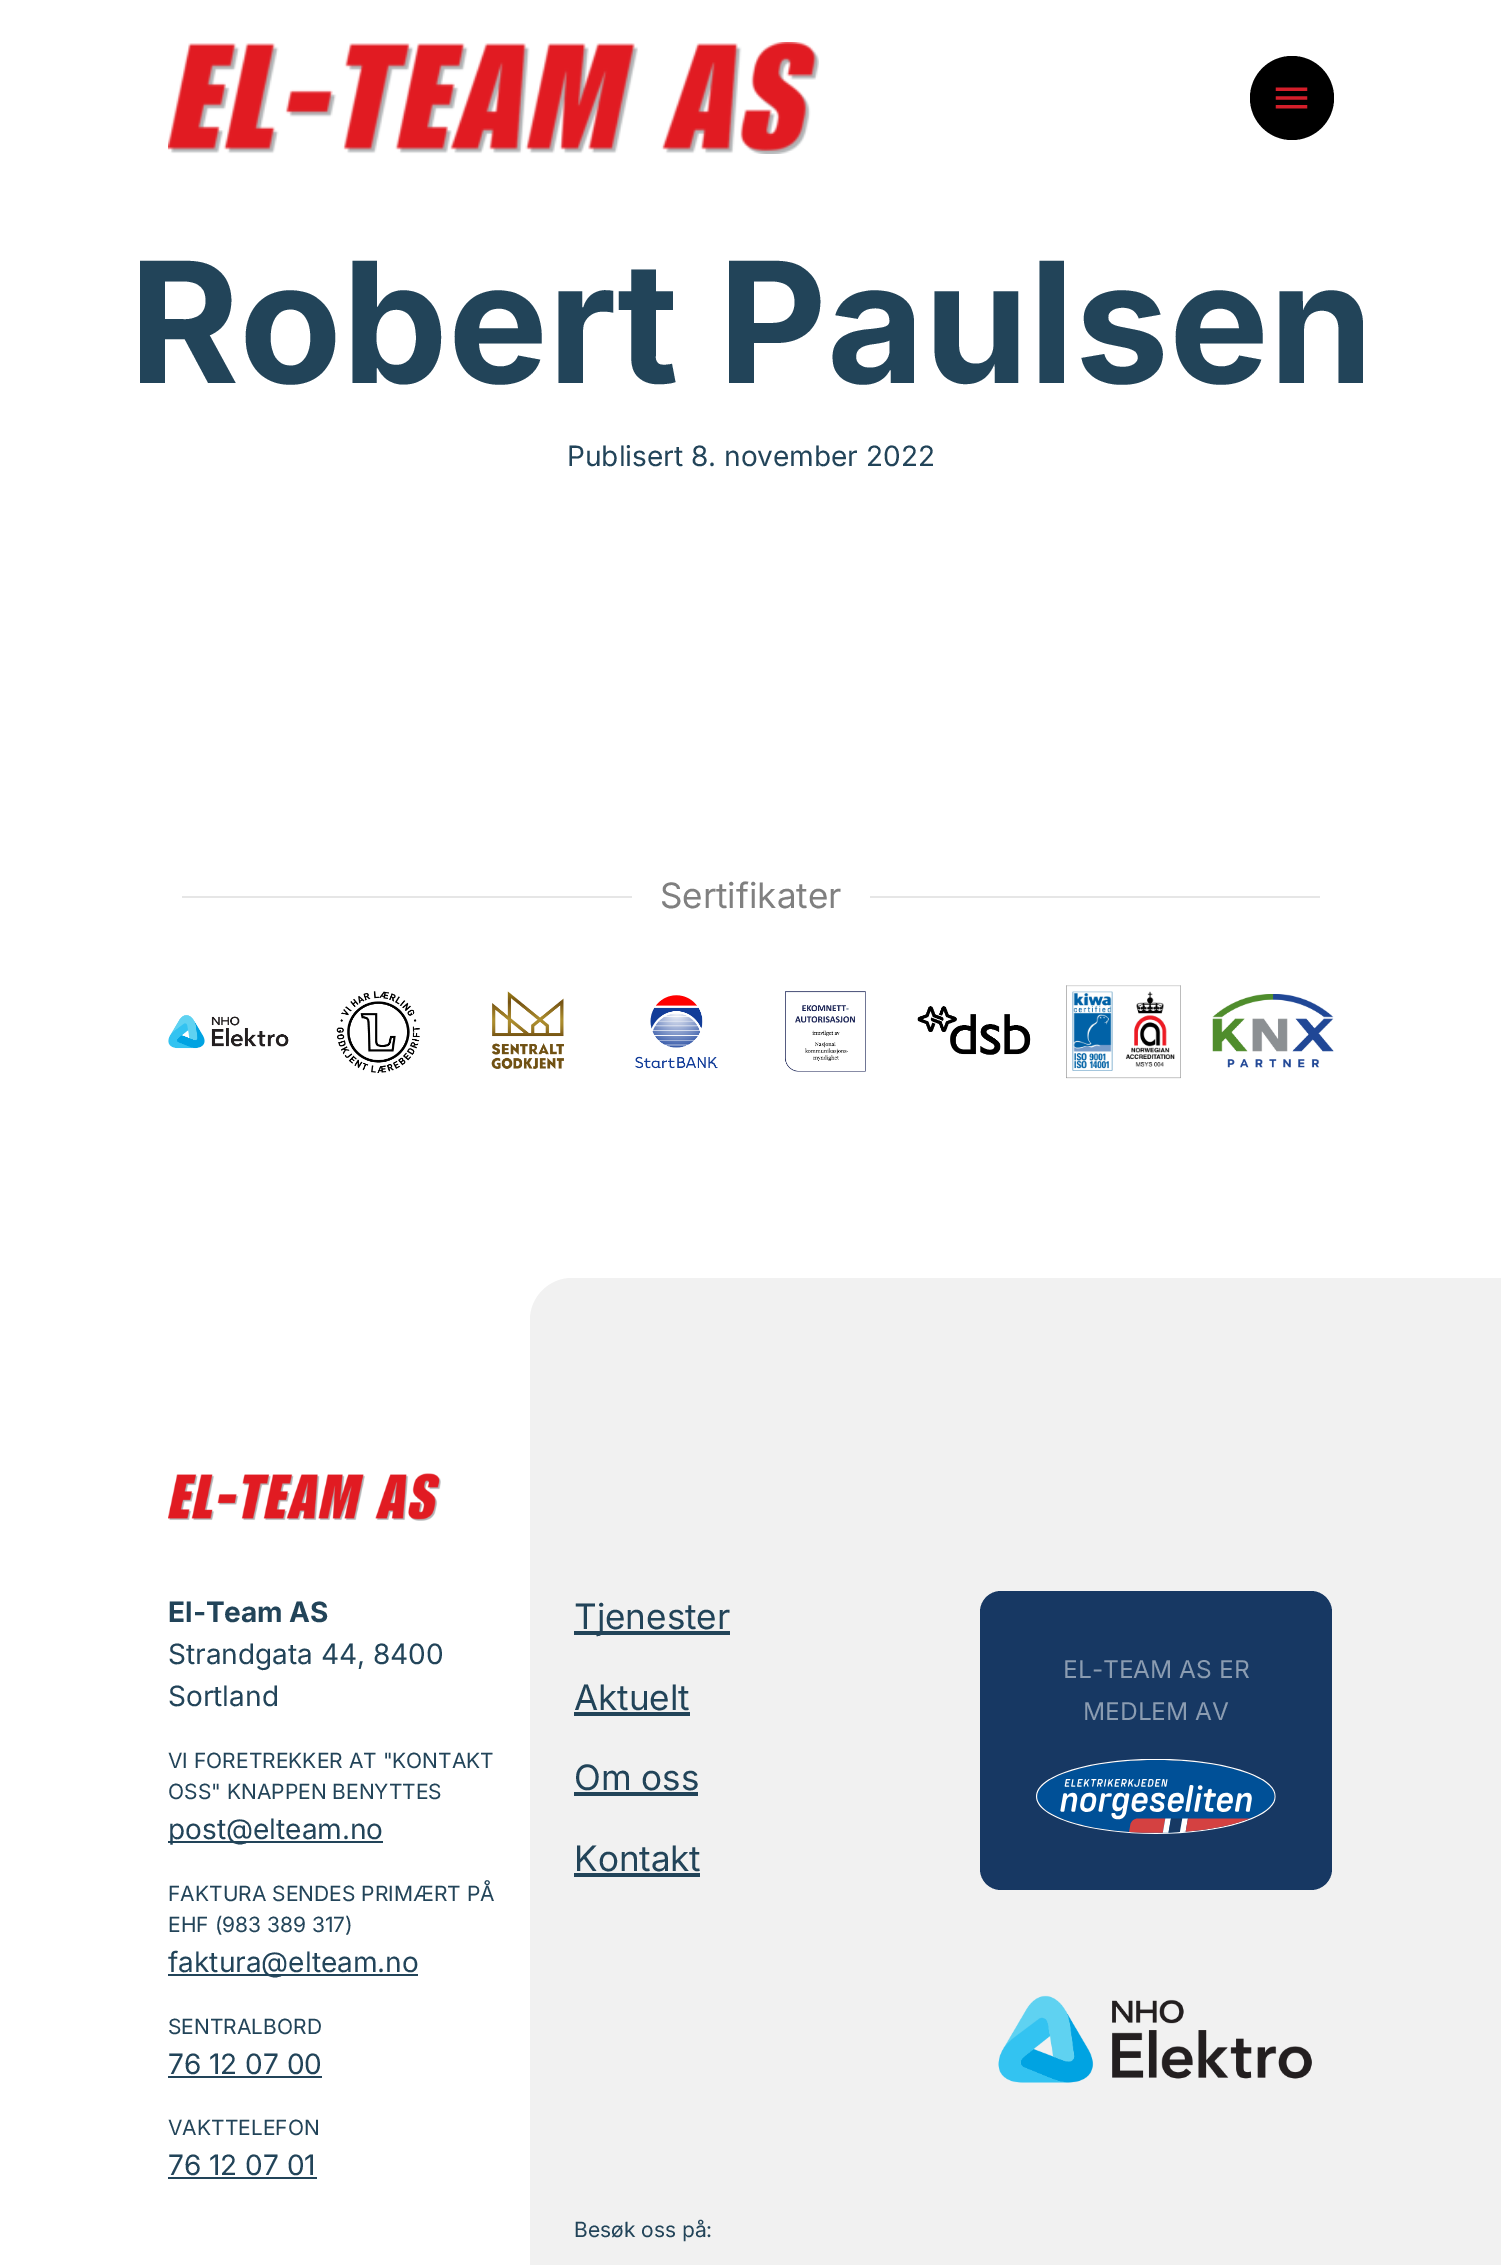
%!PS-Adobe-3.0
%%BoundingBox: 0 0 1501 2265
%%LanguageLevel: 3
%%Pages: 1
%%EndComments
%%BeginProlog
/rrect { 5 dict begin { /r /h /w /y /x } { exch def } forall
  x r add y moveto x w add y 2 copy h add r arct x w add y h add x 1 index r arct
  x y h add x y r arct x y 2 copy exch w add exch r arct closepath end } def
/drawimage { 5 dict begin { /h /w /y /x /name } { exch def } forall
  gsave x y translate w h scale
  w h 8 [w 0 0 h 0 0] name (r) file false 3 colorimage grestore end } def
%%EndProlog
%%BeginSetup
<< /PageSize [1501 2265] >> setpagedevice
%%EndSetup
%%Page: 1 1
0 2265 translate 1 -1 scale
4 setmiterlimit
1 setgray
0 0 1501 2265 rectfill
(images/1.raw) 168 42 651 112 drawimage
0 setgray
newpath 1292 98 42 0 360 arc closepath fill
(images/2.raw) 1275 87 33 22 drawimage
0.902 setgray
182 896 1138 2 rectfill
1 setgray
632 896 238 2 rectfill
(images/3.raw) 168 1015 121 34 drawimage
(images/4.raw) 336 991 84 83 drawimage
(images/5.raw) 491 991 73 78 drawimage
(images/6.raw) 635 995 83 74 drawimage
(images/7.raw) 785 991 81 81 drawimage
(images/8.raw) 917 1006 114 49 drawimage
(images/9.raw) 1066 985 115 94 drawimage
(images/10.raw) 1212 994 122 74 drawimage
(images/11.raw) 168 1473 273 48 drawimage
0.945 setgray
newpath 572 1278 moveto 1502 1278 lineto 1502 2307 lineto 530 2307 lineto 530 1320 lineto 530 1297 549 1278 572 1278 curveto closepath fill
0.133 0.267 0.349 setrgbcolor
168 1841 215 2 rectfill
168 1974 250 2 rectfill
168 2076 154 2 rectfill
168 2177 149 2 rectfill
574 1631 156 4 rectfill
574 1712 116 4 rectfill
574 1792 124 4 rectfill
574 1873 126 4 rectfill
0.09 0.22 0.388 setrgbcolor
980 1591 352 299 21 rrect fill
(images/12.raw) 1036 1759 240 75 drawimage
(images/13.raw) 998 1995 314 88 drawimage
/Inter-Bold [168 0 0 -168 0 0] selectfont
0.133 0.267 0.349 setrgbcolor
129 383 moveto (Robert Paulsen) show
/Inter-Regular [28 0 0 -28 0 0] selectfont
567 466 moveto (Publisert 8. november 2022) show
/Inter-Regular [35 0 0 -35 0 0] selectfont
0.502 setgray
660 908 moveto (Sertifikater) show
/Inter-Bold [28 0 0 -28 0 0] selectfont
0.133 0.267 0.349 setrgbcolor
168 1622 moveto (El-Team AS) show
/Inter-Regular [28 0 0 -28 0 0] selectfont
168 1664 moveto (Strandgata 44, 8400) show
168 1706 moveto (Sortland) show
/Inter-Regular [21 0 0 -21 0 0] selectfont
168 1768 moveto (VI FORETREKKER AT "KONTAKT) show
168 1799 moveto (OSS" KNAPPEN BENYTTES) show
/Inter-Regular [28 0 0 -28 0 0] selectfont
168 1839 moveto (post@elteam.no) show
/Inter-Regular [21 0 0 -21 0 0] selectfont
168 1901 moveto (FAKTURA SENDES PRIMÆRT PÅ) show
168 1932 moveto (EHF \(983 389 317\)) show
/Inter-Regular [28 0 0 -28 0 0] selectfont
168 1972 moveto (faktura@elteam.no) show
/Inter-Regular [21 0 0 -21 0 0] selectfont
168 2034 moveto (SENTRALBORD) show
/Inter-Regular [28 0 0 -28 0 0] selectfont
168 2074 moveto (76 12 07 00) show
/Inter-Regular [21 0 0 -21 0 0] selectfont
168 2135 moveto (VAKTTELEFON) show
/Inter-Regular [28 0 0 -28 0 0] selectfont
168 2175 moveto (76 12 07 01) show
/Inter-Regular [35 0 0 -35 0 0] selectfont
574 1629 moveto (Tjenester) show
574 1710 moveto (Aktuelt) show
574 1790 moveto (Om oss) show
574 1871 moveto (Kontakt) show
/Inter-Regular [24.5 0 0 -24.5 0 0] selectfont
0.545 0.612 0.694 setrgbcolor
1063 1678 moveto (EL-TEAM AS ER) show
1083 1720 moveto (MEDLEM AV) show
/Inter-Regular [21 0 0 -21 0 0] selectfont
0.133 0.267 0.349 setrgbcolor
574 2237 moveto (Besøk oss på:) show
showpage
%%EOF
